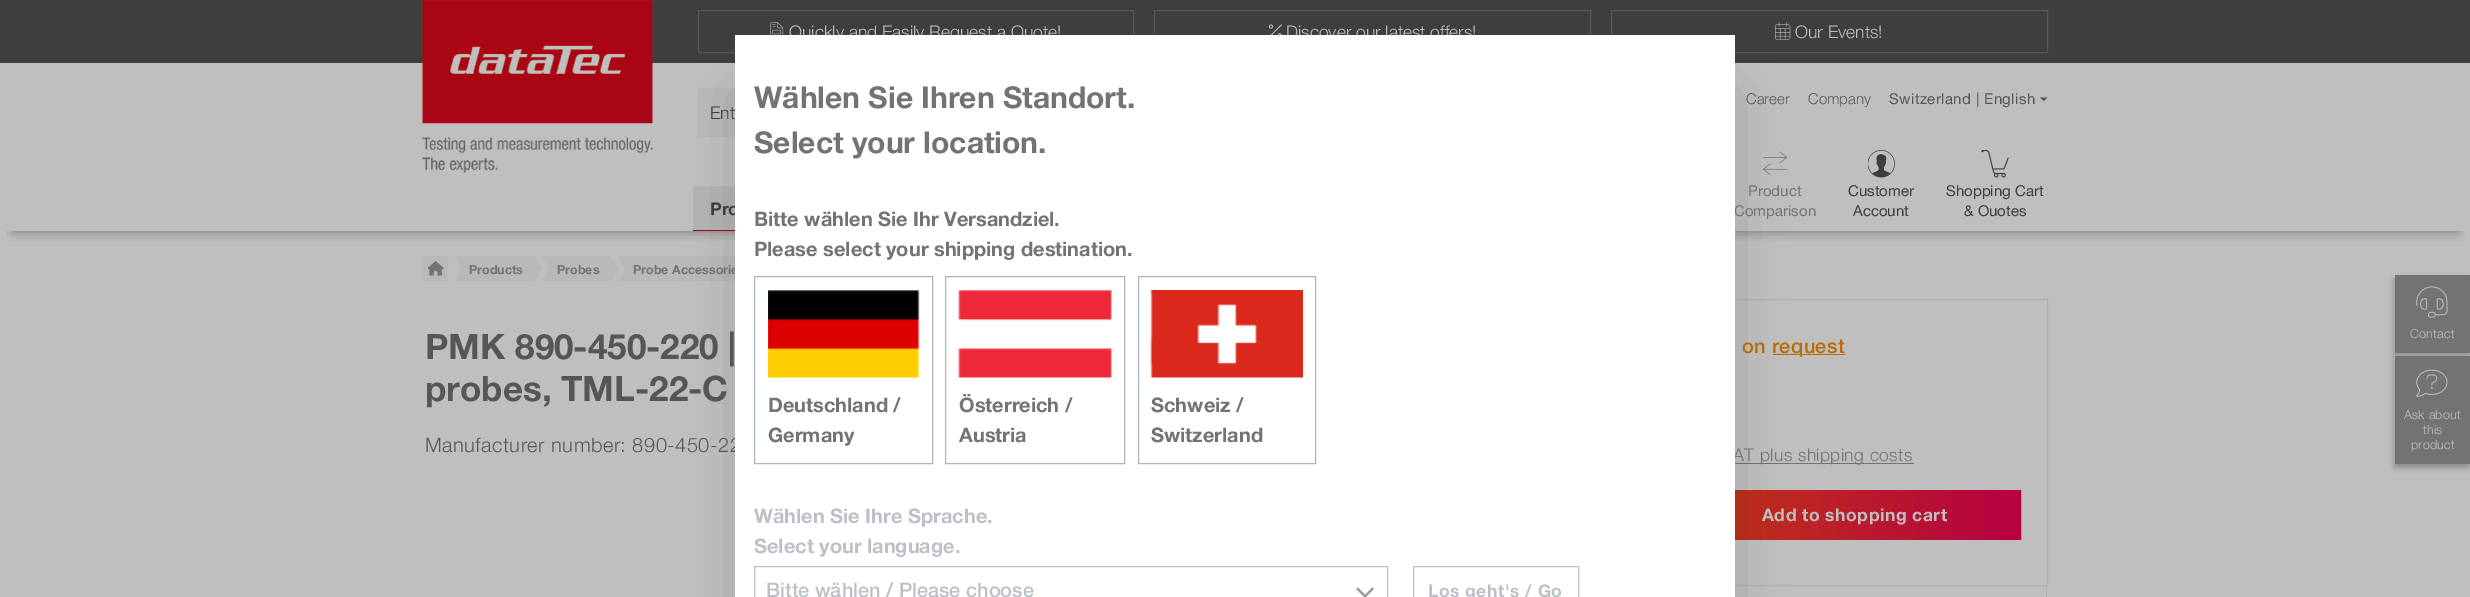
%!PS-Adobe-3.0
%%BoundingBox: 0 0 2470 597
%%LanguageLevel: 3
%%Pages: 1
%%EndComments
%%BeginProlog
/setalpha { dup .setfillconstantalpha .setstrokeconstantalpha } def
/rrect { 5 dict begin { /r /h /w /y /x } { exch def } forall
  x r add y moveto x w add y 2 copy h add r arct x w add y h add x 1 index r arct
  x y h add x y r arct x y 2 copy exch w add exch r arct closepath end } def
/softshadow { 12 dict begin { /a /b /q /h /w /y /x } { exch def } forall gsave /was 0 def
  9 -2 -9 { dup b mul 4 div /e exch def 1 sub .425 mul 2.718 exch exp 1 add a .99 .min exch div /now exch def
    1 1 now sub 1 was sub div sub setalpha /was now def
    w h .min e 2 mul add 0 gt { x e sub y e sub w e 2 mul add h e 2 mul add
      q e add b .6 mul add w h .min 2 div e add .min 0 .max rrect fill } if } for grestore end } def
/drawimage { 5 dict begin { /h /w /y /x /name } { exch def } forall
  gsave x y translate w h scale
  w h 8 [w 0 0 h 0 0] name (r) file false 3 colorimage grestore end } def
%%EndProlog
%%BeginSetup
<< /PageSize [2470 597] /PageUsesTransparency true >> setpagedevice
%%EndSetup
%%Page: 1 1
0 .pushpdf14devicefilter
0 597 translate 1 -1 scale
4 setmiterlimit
0.749 setgray
0 0 2470 597 rectfill
0.243 setgray
0 0 2470 63 rectfill
(images/1.raw) 422 0 231 173 drawimage
0.337 setgray
698.5 10.5 435 42 rectstroke
(images/2.raw) 770 22 14 13 drawimage
1154.5 10.5 436 42 rectstroke
(images/3.raw) 1268 24 14 11 drawimage
1611.5 10.5 436 42 rectstroke
(images/4.raw) 1775 22 16 18 drawimage
0.725 setgray
699 89 36 47 rectfill
698 88 37 1 rectfill
698 136 37 1 rectfill
698 88 1 50 rectfill
0.337 setgray
newpath 2040 97.5 moveto 2047.5 97.5 lineto 2044 101 lineto closepath fill
(images/5.raw) 1763 151 24 25 drawimage
(images/6.raw) 1868 150 27 28 drawimage
(images/7.raw) 1981 150 28 28 drawimage
gsave
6 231 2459 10 rectclip
0 setgray
13 211 2445 20 0 6 0.4 softshadow
grestore
0.702 setgray
693 186 42 44 rectfill
0.667 0 0.078 setrgbcolor
693 230 42 1 rectfill
0.725 setgray
618 256 117 25 rectfill
0.69 setgray
1523.5 299.5 524 286 rectstroke
0.722 0.42 0 setrgbcolor
1773 354 72 1 rectfill
0.451 setgray
1735 463 179 1 rectfill
gsave newpath 1735 491 moveto 2020 491 lineto 2020 539 lineto 1735 539 lineto closepath clip newpath 1609 515 translate 412 412 scale
<< /ShadingType 3 /ColorSpace /DeviceRGB /Coords [0 0 0 0 0 1] /Extend [true true] /Function << /FunctionType 3 /Domain [0 1] /Functions [<< /FunctionType 2 /Domain [0 1] /C0 [0.749 0.227 0.067] /C1 [0.749 0.227 0.067] /N 1 >> << /FunctionType 2 /Domain [0 1] /C0 [0.749 0.227 0.067] /C1 [0.714 0 0.263] /N 1 >>] /Bounds [0.15] /Encode [0 1 0 1] >> >> shfill grestore
(images/13.raw) 1735 490 287 50 drawimage
0 setgray
743 96 985 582 0 27 0.2 softshadow
0.725 setgray
423 256 25 25 rectfill
(images/12.raw) 428 261 16 15 drawimage
454 256 81 25 rectfill
0.749 setgray
newpath 454 281 moveto 454 256 lineto 461 269 lineto closepath fill
0.725 setgray
541 256 70 25 rectfill
0.749 setgray
newpath 541 281 moveto 541 256 lineto 549 269 lineto closepath fill
0.725 setgray
newpath 534 281 moveto 534 256 lineto 542.5 269 lineto closepath fill
0.749 setgray
newpath 617.5 281 moveto 617.5 256 lineto 625 269 lineto closepath fill
0.725 setgray
newpath 610 281 moveto 610 256 lineto 619 269 lineto closepath fill
0.69 setgray
2046 586 1 11 rectfill
0 setgray
2394 279 75 77 0 3 0.25 softshadow
2394 360 75 108 0 3 0.25 softshadow
0.451 setgray
2395 275 75 78 rectfill
(images/14.raw) 2416 286 32 32 drawimage
2395 356 75 108 rectfill
(images/15.raw) 2416 369 32 28 drawimage
/HelveticaNeue-Light [17.5 0 0 -17.5 0 0] selectfont
0.749 setgray
789 38 moveto (Quickly and Easily Request a Quote!) show
1286 38 moveto (Discover our latest offers!) show
1795 38 moveto (Our Events!) show
0.243 setgray
710 119 moveto (Ent) show
/HelveticaNeue-Light [15 0 0 -15 0 0] selectfont
0.337 setgray
1746 104 moveto (Career) show
1808 104 moveto (Company) show
/HelveticaNeue-Regular [15 0 0 -15 0 0] selectfont
1889 104 moveto 0.4 0 (Switzerland | English) ashow
0.451 setgray
1748 196 moveto (Product) show
1734 216 moveto (Comparison) show
0.243 setgray
1848 196 moveto (Customer) show
1853 216 moveto (Account) show
1946 196 moveto (Shopping Cart) show
1964 216 moveto (& Ouotes) show
/HelveticaNeue-Bold [17.5 0 0 -17.5 0 0] selectfont
0.22 0.247 0.267 setrgbcolor
710 215 moveto (Pro) show
/HelveticaNeue-Bold [12.5 0 0 -12.5 0 0] selectfont
0.451 setgray
469 274 moveto (Products) show
557 274 moveto (Probes) show
633 274 moveto (Probe Accessorie) show
/HelveticaNeue-Bold [35 0 0 -35 0 0] selectfont
0.337 setgray
425 359 moveto (PMK 890-450-220 |) show
425 401 moveto (probes, TML-22-C) show
/HelveticaNeue-Light [20 0 0 -20 0 0] selectfont
425 452 moveto 0.5 0 (Manufacturer number: 890-450-22) ashow
/HelveticaNeue-Medium [20 0 0 -20 0 0] selectfont
0.722 0.42 0 setrgbcolor
1742 353 moveto 0.4 0 (on) ashow
1772 353 moveto 0.4 0 (request) ashow
/HelveticaNeue-Light [17.5 0 0 -17.5 0 0] selectfont
0.451 setgray
1733 461 moveto 0.4 0 (AT plus shipping costs) ashow
1 setgray
735 35 1000 562 rectfill
0.737 0.757 0.78 setrgbcolor
1413.5 566.5 165 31 rectstroke
/HelveticaNeue-Bold [17.5 0 0 -17.5 0 0] selectfont
1428 597 moveto 0.5 0 (Los geht's / Go) ashow
(images/11.raw) 1356 587 18 10 drawimage
754.5 566.5 633 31 rectstroke
/HelveticaNeue-Medium [20 0 0 -20 0 0] selectfont
766 597 moveto (Bitte wählen / Please choose) show
/HelveticaNeue-Bold [20 0 0 -20 0 0] selectfont
754 553 moveto (Select your language.) show
754 523 moveto (Wählen Sie Ihre Sprache.) show
0.678 0.71 0.741 setrgbcolor
1138.5 276.5 177 187 rectstroke
0.451 setgray
1151 442 moveto (Switzerland) show
1151 412 moveto (Schweiz /) show
(images/10.raw) 1150 290 153 88 drawimage
0.678 0.71 0.741 setrgbcolor
945.5 276.5 179 187 rectstroke
0.451 setgray
959 442 moveto (Austria) show
959 412 moveto (Österreich /) show
(images/9.raw) 958 290 154 88 drawimage
0.678 0.71 0.741 setrgbcolor
754.5 276.5 178 187 rectstroke
0.451 setgray
768 442 moveto (Germany) show
768 412 moveto (Deutschland /) show
(images/8.raw) 768 290 152 88 drawimage
754 256 moveto (Please select your shipping destination.) show
754 226 moveto (Bitte wählen Sie Ihr Versandziel.) show
/HelveticaNeue-Bold [30 0 0 -30 0 0] selectfont
754 153 moveto (Select your location.) show
754 108 moveto (Wählen Sie Ihren Standort.) show
/HelveticaNeue-Bold [17.5 0 0 -17.5 0 0] selectfont
0.749 setgray
1762 521 moveto 0.5 0 (Add to shopping cart) ashow
/HelveticaNeue-Light [12.5 0 0 -12.5 0 0] selectfont
2410 338 moveto 0.25 0 (Contact) ashow
2404 419 moveto 0.25 0 (Ask about) ashow
2423 434 moveto 0.25 0 (this) ashow
2411 449 moveto 0.25 0 (product) ashow
.poppdf14devicefilter showpage
%%EOF
